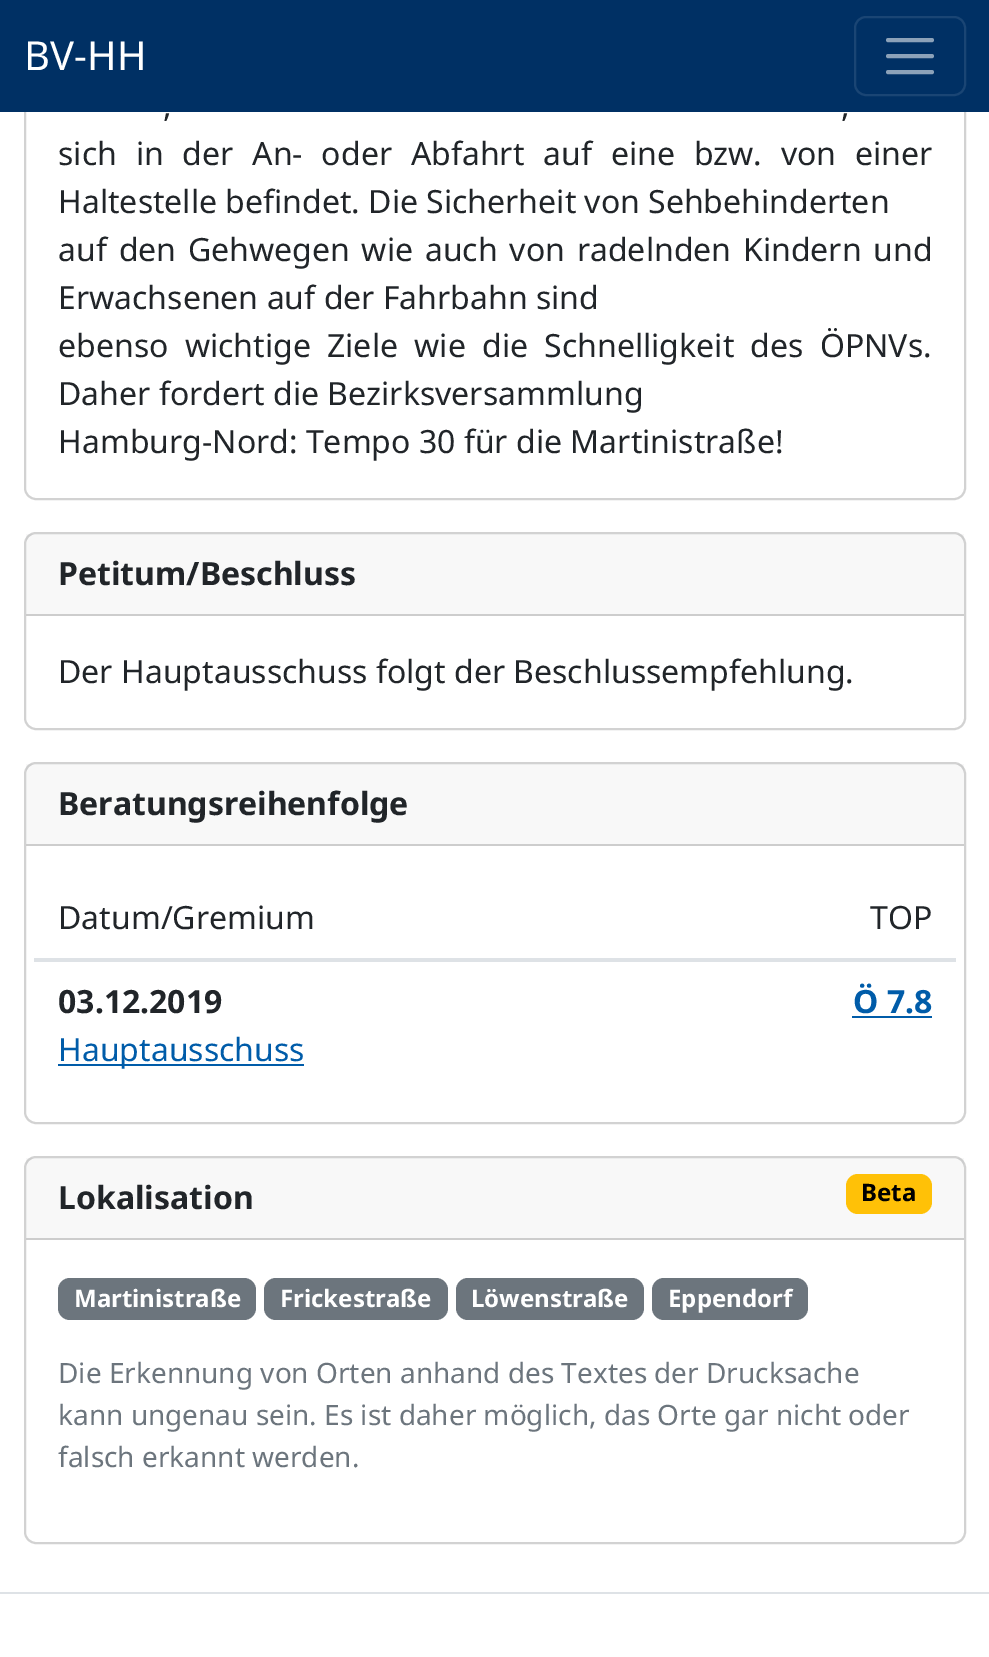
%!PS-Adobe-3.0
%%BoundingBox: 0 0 989 1657
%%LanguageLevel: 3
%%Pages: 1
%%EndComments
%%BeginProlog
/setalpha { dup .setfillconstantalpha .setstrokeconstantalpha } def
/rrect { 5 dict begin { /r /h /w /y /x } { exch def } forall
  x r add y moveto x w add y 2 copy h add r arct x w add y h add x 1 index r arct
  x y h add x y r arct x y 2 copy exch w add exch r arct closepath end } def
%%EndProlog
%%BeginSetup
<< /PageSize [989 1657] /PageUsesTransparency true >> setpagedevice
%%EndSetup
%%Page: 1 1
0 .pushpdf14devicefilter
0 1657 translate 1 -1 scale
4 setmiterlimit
1 setgray
0 0 989 1657 rectfill
0.824 setgray
2 setlinewidth
25 -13 940 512 11 rrect stroke
0 0.188 0.392 setrgbcolor
0 0 989 112 rectfill
0.102 0.271 0.455 setrgbcolor
855 17 110 78 11 rrect stroke
0.549 0.635 0.725 setrgbcolor
4 setlinewidth
1 setlinecap
newpath 888 40 moveto 932 40 lineto 888 56 moveto 932 56 lineto 888 72 moveto 932 72 lineto stroke
0.824 setgray
2 setlinewidth
0 setlinecap
25 533 940 196 11 rrect stroke
0.03 setalpha
0.129 0.145 0.161 setrgbcolor
26 534 938 80 rectfill
1 setalpha
0.804 setgray
26 614 938 2 rectfill
0.824 setgray
25 763 940 360 11 rrect stroke
0.03 setalpha
0.129 0.145 0.161 setrgbcolor
26 764 938 80 rectfill
1 setalpha
0.804 setgray
26 844 938 2 rectfill
0.871 0.886 0.902 setrgbcolor
34 958 922 2 rectfill
34 960 922 2 rectfill
0 0.361 0.663 setrgbcolor
852 1016 80 2 rectfill
58 1064 246 2 rectfill
0.824 setgray
25 1157 940 386 11 rrect stroke
0.03 setalpha
0.129 0.145 0.161 setrgbcolor
26 1158 938 80 rectfill
1 setalpha
0.804 setgray
26 1238 938 2 rectfill
1 0.757 0.027 setrgbcolor
846 1174 86 40 12 rrect fill
0.424 0.459 0.49 setrgbcolor
58 1278 198 42 12 rrect fill
264 1278 184 42 12 rrect fill
456 1278 188 42 12 rrect fill
652 1278 156 42 12 rrect fill
0.871 0.886 0.902 setrgbcolor
0 1592 989 2 rectfill
/NotoSans-Regular [40 0 0 -40 0 0] selectfont
1 setgray
24 70 moveto (BV-HH) show
/NotoSans-Regular [32 0 0 -32 0 0] selectfont
0.129 0.145 0.161 setrgbcolor
163 117 moveto 4 0 32 (,) widthshow
841 117 moveto 4 0 32 (,) widthshow
58 165 moveto 10.5 0 32 (sich in der An- oder Abfahrt auf eine bzw. von einer) widthshow
58 213 moveto (Haltestelle befindet. Die Sicherheit von Sehbehinderten) show
58 261 moveto 3.5 0 32 (auf den Gehwegen wie auch von radelnden Kindern und) widthshow
58 309 moveto (Erwachsenen auf der Fahrbahn sind) show
58 357 moveto 8 0 32 (ebenso wichtige Ziele wie die Schnelligkeit des ÖPNVs.) widthshow
58 405 moveto (Daher fordert die Bezirksversammlung) show
58 453 moveto (Hamburg-Nord: Tempo 30 für die Martinistraße!) show
/NotoSans-Bold [32 0 0 -32 0 0] selectfont
58 585 moveto (Petitum/Beschluss) show
/NotoSans-Regular [32 0 0 -32 0 0] selectfont
58 683 moveto (Der Hauptausschuss folgt der Beschlussempfehlung.) show
/NotoSans-Bold [32 0 0 -32 0 0] selectfont
58 815 moveto (Beratungsreihenfolge) show
/NotoSans-Regular [32 0 0 -32 0 0] selectfont
58 929 moveto (Datum/Gremium) show
870 929 moveto (TOP) show
/NotoSans-Bold [32 0 0 -32 0 0] selectfont
58 1013 moveto (03.12.2019) show
0 0.361 0.663 setrgbcolor
853 1013 moveto (Ö 7.8) show
/NotoSans-Regular [32 0 0 -32 0 0] selectfont
58 1061 moveto (Hauptausschuss) show
/NotoSans-Bold [32 0 0 -32 0 0] selectfont
0.129 0.145 0.161 setrgbcolor
58 1209 moveto (Lokalisation) show
/NotoSans-Bold [24 0 0 -24 0 0] selectfont
0 setgray
861 1201 moveto (Beta) show
1 setgray
74 1307 moveto (Martinistraße) show
280 1307 moveto (Frickestraße) show
471 1307 moveto (Löwenstraße) show
668 1307 moveto (Eppendorf) show
/NotoSans-Regular [28 0 0 -28 0 0] selectfont
0.424 0.459 0.49 setrgbcolor
58 1383 moveto (Die Erkennung von Orten anhand des Textes der Drucksache) show
58 1425 moveto (kann ungenau sein. Es ist daher möglich, das Orte gar nicht oder) show
58 1467 moveto (falsch erkannt werden.) show
.poppdf14devicefilter showpage
%%EOF
